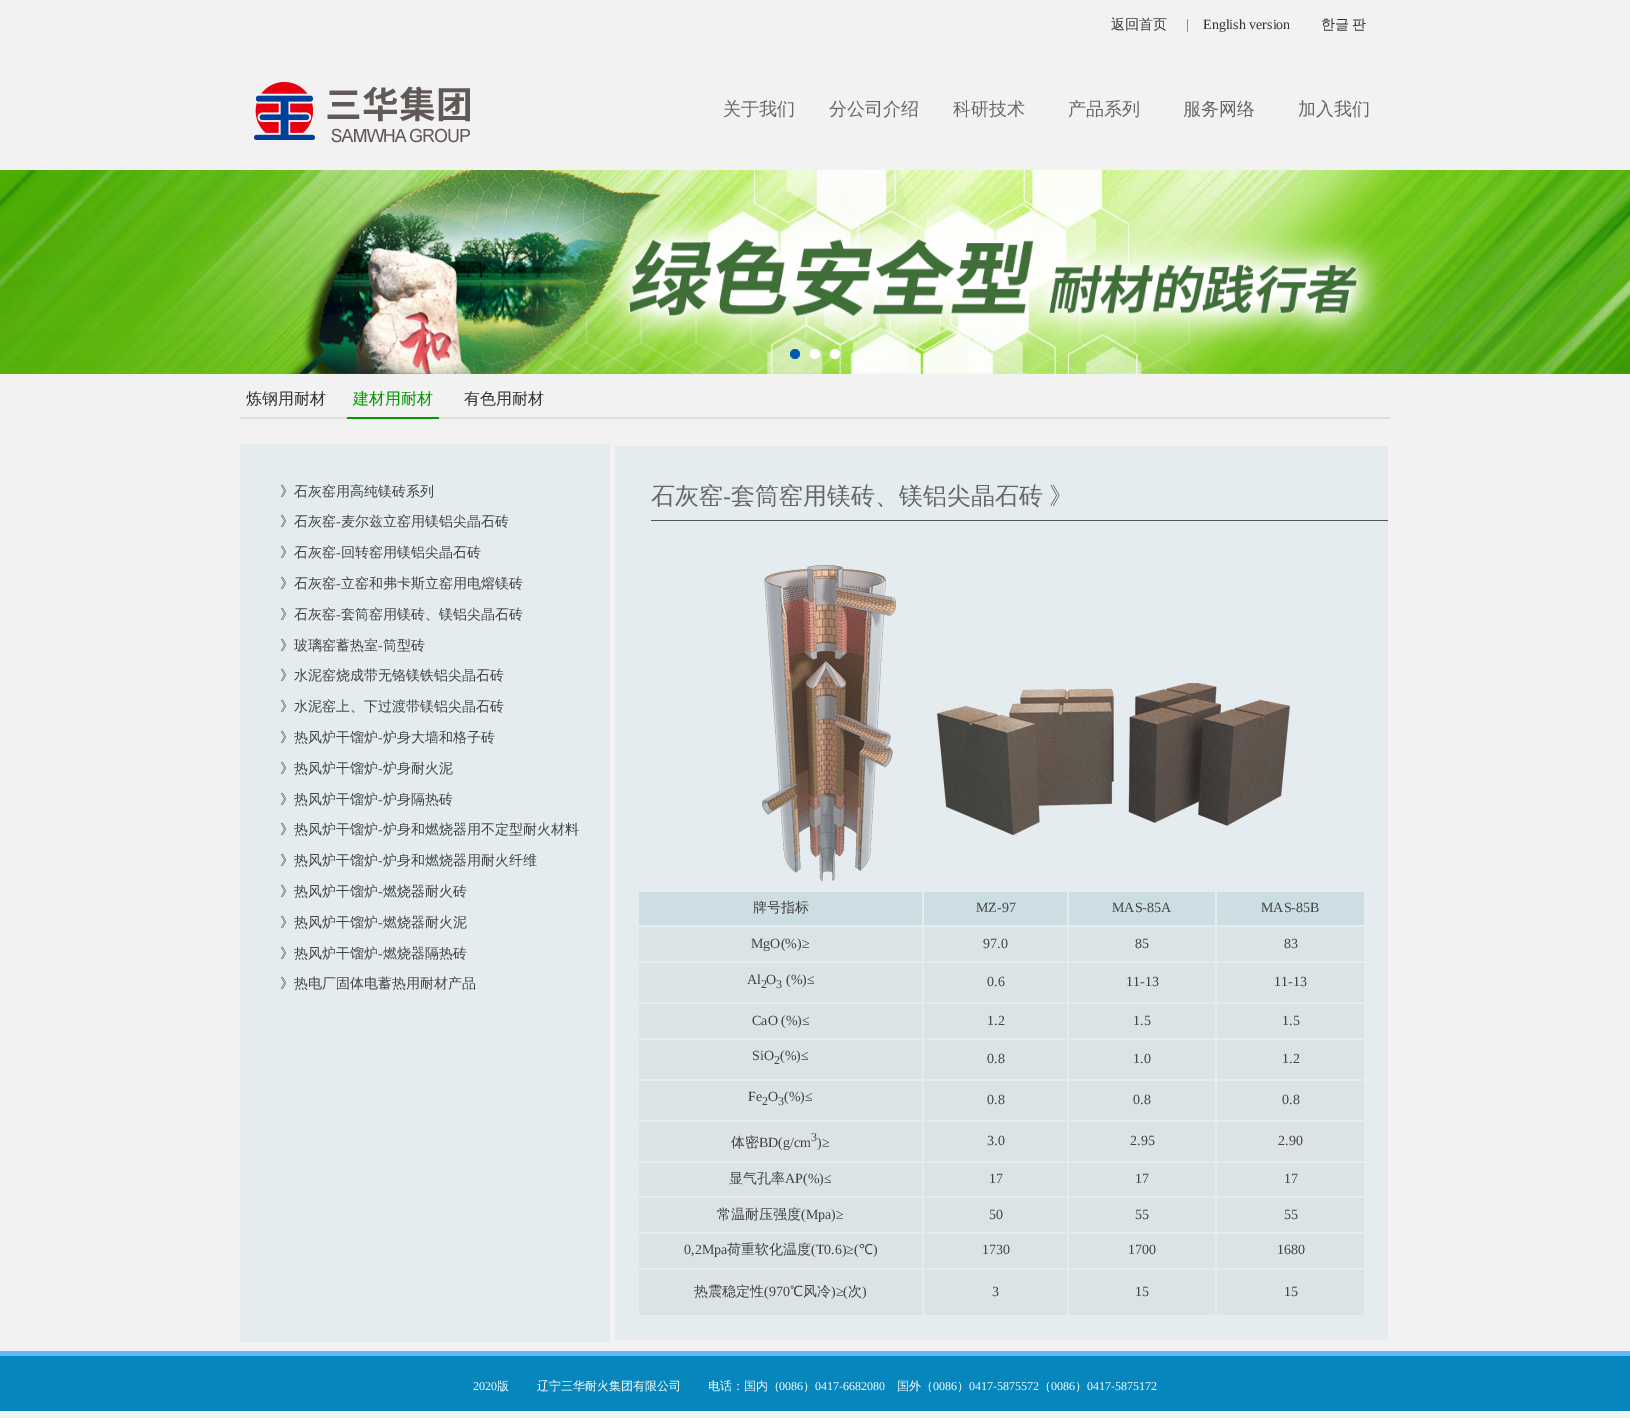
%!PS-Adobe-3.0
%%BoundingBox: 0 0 1630 1418
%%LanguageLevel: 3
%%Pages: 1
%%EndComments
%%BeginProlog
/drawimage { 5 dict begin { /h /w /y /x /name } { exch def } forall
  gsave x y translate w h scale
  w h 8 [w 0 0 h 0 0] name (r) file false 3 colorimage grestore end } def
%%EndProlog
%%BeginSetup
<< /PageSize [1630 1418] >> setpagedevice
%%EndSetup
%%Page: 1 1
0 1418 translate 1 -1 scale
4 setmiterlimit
0.949 setgray
0 0 1630 1418 rectfill
(images/1.raw) 254 82 216 61 drawimage
(images/2.raw) 0 373 1630 1 drawimage
(images/3.raw) 0 170 1630 204 drawimage
0 0.357 0.671 setrgbcolor
newpath 795 354 5 0 360 arc closepath fill
1 setgray
newpath 815 354 5 0 360 arc closepath fill
newpath 835 354 5 0 360 arc closepath fill
0.867 setgray
240 417 1150 2 rectfill
0 0.6 0 setrgbcolor
347 417 92 2 rectfill
0.898 0.925 0.937 setrgbcolor
240 444 370 2 rectfill
240 446 40 896 rectfill
280 446 330 896 rectfill
615 446 36 444 rectfill
651 446 737 444 rectfill
0.333 setgray
651 520 737 1 rectfill
(images/4.raw) 762 565 528 316 drawimage
0.898 0.925 0.937 setrgbcolor
615 890 773 450 rectfill
0.8 0.867 0.89 setrgbcolor
639 892 283 33 rectfill
924 892 143 33 rectfill
1069 892 146 33 rectfill
1217 892 147 33 rectfill
0.863 0.89 0.898 setrgbcolor
639 927 283 34 rectfill
924 927 143 34 rectfill
1069 927 146 34 rectfill
1217 927 147 34 rectfill
639 963 283 39 rectfill
924 963 143 39 rectfill
1069 963 146 39 rectfill
1217 963 147 39 rectfill
639 1004 283 34 rectfill
924 1004 143 34 rectfill
1069 1004 146 34 rectfill
1217 1004 147 34 rectfill
639 1040 283 39 rectfill
924 1040 143 39 rectfill
1069 1040 146 39 rectfill
1217 1040 147 39 rectfill
639 1081 283 39 rectfill
924 1081 143 39 rectfill
1069 1081 146 39 rectfill
1217 1081 147 39 rectfill
639 1122 283 39 rectfill
924 1122 143 39 rectfill
1069 1122 146 39 rectfill
1217 1122 147 39 rectfill
639 1163 283 33 rectfill
924 1163 143 33 rectfill
1069 1163 146 33 rectfill
1217 1163 147 33 rectfill
639 1198 283 34 rectfill
924 1198 143 34 rectfill
1069 1198 146 34 rectfill
1217 1198 147 34 rectfill
639 1234 283 34 rectfill
924 1234 143 34 rectfill
1069 1234 146 34 rectfill
1217 1234 147 34 rectfill
639 1270 283 45 rectfill
924 1270 143 45 rectfill
1069 1270 146 45 rectfill
1217 1270 147 45 rectfill
0.02 0.529 0.741 setrgbcolor
0 1356 1630 55 rectfill
0.388 0.714 0.984 setrgbcolor
0 1351 1630 5 rectfill
/WenQuanYiZenHei-Medium [14 0 0 -14 0 0] selectfont
0.2 setgray
1111 29 moveto (返回首页) show
/LiberationSerif-Regular [14 0 0 -14 0 0] selectfont
0.4 setgray
1186 29 moveto (|) show
0.2 setgray
1203 29 moveto (English version) show
/WenQuanYiZenHei-Medium [14 0 0 -14 0 0] selectfont
1321 29 moveto -1 0 32 (한글 판) widthshow
/WenQuanYiZenHei-Medium [18 0 0 -18 0 0] selectfont
0.4 setgray
723 115 moveto (关于我们) show
829 115 moveto (分公司介绍) show
953 115 moveto (科研技术) show
1068 115 moveto (产品系列) show
1183 115 moveto (服务网络) show
1298 115 moveto (加入我们) show
/WenQuanYiZenHei-Medium [16 0 0 -16 0 0] selectfont
0.2 setgray
246 404 moveto (炼钢用耐材) show
0 0.6 0 setrgbcolor
353 404 moveto (建材用耐材) show
0.2 setgray
464 404 moveto (有色用耐材) show
/WenQuanYiZenHei-Medium [14 0 0 -14 0 0] selectfont
0.267 setgray
280 496 moveto (》石灰窑用高纯镁砖系列) show
280 526 moveto (》石灰窑) show
/LiberationSerif-Regular [14 0 0 -14 0 0] selectfont
336 526 moveto (-) show
/WenQuanYiZenHei-Medium [14 0 0 -14 0 0] selectfont
341 526 moveto (麦尔兹立窑用镁铝尖晶石砖) show
280 557 moveto (》石灰窑) show
/LiberationSerif-Regular [14 0 0 -14 0 0] selectfont
336 557 moveto (-) show
/WenQuanYiZenHei-Medium [14 0 0 -14 0 0] selectfont
341 557 moveto (回转窑用镁铝尖晶石砖) show
280 588 moveto (》石灰窑) show
/LiberationSerif-Regular [14 0 0 -14 0 0] selectfont
336 588 moveto (-) show
/WenQuanYiZenHei-Medium [14 0 0 -14 0 0] selectfont
341 588 moveto (立窑和弗卡斯立窑用电熔镁砖) show
280 619 moveto (》石灰窑) show
/LiberationSerif-Regular [14 0 0 -14 0 0] selectfont
336 619 moveto (-) show
/WenQuanYiZenHei-Medium [14 0 0 -14 0 0] selectfont
341 619 moveto (套筒窑用镁砖、镁铝尖晶石砖) show
280 650 moveto (》玻璃窑蓄热室) show
/LiberationSerif-Regular [14 0 0 -14 0 0] selectfont
378 650 moveto (-) show
/WenQuanYiZenHei-Medium [14 0 0 -14 0 0] selectfont
383 650 moveto (筒型砖) show
280 680 moveto (》水泥窑烧成带无铬镁铁铝尖晶石砖) show
280 711 moveto (》水泥窑上、下过渡带镁铝尖晶石砖) show
280 742 moveto (》热风炉干馏炉) show
/LiberationSerif-Regular [14 0 0 -14 0 0] selectfont
378 742 moveto (-) show
/WenQuanYiZenHei-Medium [14 0 0 -14 0 0] selectfont
383 742 moveto (炉身大墙和格子砖) show
280 773 moveto (》热风炉干馏炉) show
/LiberationSerif-Regular [14 0 0 -14 0 0] selectfont
378 773 moveto (-) show
/WenQuanYiZenHei-Medium [14 0 0 -14 0 0] selectfont
383 773 moveto (炉身耐火泥) show
280 804 moveto (》热风炉干馏炉) show
/LiberationSerif-Regular [14 0 0 -14 0 0] selectfont
378 804 moveto (-) show
/WenQuanYiZenHei-Medium [14 0 0 -14 0 0] selectfont
383 804 moveto (炉身隔热砖) show
280 834 moveto (》热风炉干馏炉) show
/LiberationSerif-Regular [14 0 0 -14 0 0] selectfont
378 834 moveto (-) show
/WenQuanYiZenHei-Medium [14 0 0 -14 0 0] selectfont
383 834 moveto (炉身和燃烧器用不定型耐火材料) show
280 865 moveto (》热风炉干馏炉) show
/LiberationSerif-Regular [14 0 0 -14 0 0] selectfont
378 865 moveto (-) show
/WenQuanYiZenHei-Medium [14 0 0 -14 0 0] selectfont
383 865 moveto (炉身和燃烧器用耐火纤维) show
280 896 moveto (》热风炉干馏炉) show
/LiberationSerif-Regular [14 0 0 -14 0 0] selectfont
378 896 moveto (-) show
/WenQuanYiZenHei-Medium [14 0 0 -14 0 0] selectfont
383 896 moveto (燃烧器耐火砖) show
280 927 moveto (》热风炉干馏炉) show
/LiberationSerif-Regular [14 0 0 -14 0 0] selectfont
378 927 moveto (-) show
/WenQuanYiZenHei-Medium [14 0 0 -14 0 0] selectfont
383 927 moveto (燃烧器耐火泥) show
280 958 moveto (》热风炉干馏炉) show
/LiberationSerif-Regular [14 0 0 -14 0 0] selectfont
378 958 moveto (-) show
/WenQuanYiZenHei-Medium [14 0 0 -14 0 0] selectfont
383 958 moveto (燃烧器隔热砖) show
280 988 moveto (》热电厂固体电蓄热用耐材产品) show
/WenQuanYiZenHei-Medium [24 0 0 -24 0 0] selectfont
0.4 setgray
651 504 moveto (石灰窑) show
/LiberationSerif-Regular [24 0 0 -24 0 0] selectfont
723 504 moveto (-) show
/WenQuanYiZenHei-Medium [24 0 0 -24 0 0] selectfont
731 504 moveto (套筒窑用镁砖、镁铝尖晶石砖) show
1049 504 moveto (》) show
/WenQuanYiZenHei-Medium [14 0 0 -14 0 0] selectfont
0.267 setgray
753 912 moveto (牌号指标) show
/LiberationSerif-Regular [14 0 0 -14 0 0] selectfont
976 912 moveto (MZ-97) show
1112 912 moveto (MAS-85A) show
1261 912 moveto (MAS-85B) show
751 948 moveto (MgO\(%\)≥) show
983 948 moveto (97.0) show
1135 948 moveto (85) show
1284 948 moveto (83) show
747 984 moveto (Al) show
/LiberationSerif-Regular [12 0 0 -12 0 0] selectfont
761 988 moveto (2) show
/LiberationSerif-Regular [14 0 0 -14 0 0] selectfont
766 984 moveto (O) show
/LiberationSerif-Regular [12 0 0 -12 0 0] selectfont
776 988 moveto (3) show
/LiberationSerif-Regular [14 0 0 -14 0 0] selectfont
786 984 moveto (\(%\)≤) show
987 986 moveto (0.6) show
1126 986 moveto (11-13) show
1274 986 moveto (11-13) show
752 1025 moveto (CaO \(%\)≤) show
987 1025 moveto (1.2) show
1133 1025 moveto (1.5) show
1282 1025 moveto (1.5) show
752 1060 moveto (SiO) show
/LiberationSerif-Regular [12 0 0 -12 0 0] selectfont
774 1064 moveto (2) show
/LiberationSerif-Regular [14 0 0 -14 0 0] selectfont
780 1060 moveto (\(%\)≤) show
987 1063 moveto (0.8) show
1133 1063 moveto (1.0) show
1282 1063 moveto (1.2) show
748 1101 moveto (Fe) show
/LiberationSerif-Regular [12 0 0 -12 0 0] selectfont
762 1105 moveto (2) show
/LiberationSerif-Regular [14 0 0 -14 0 0] selectfont
768 1101 moveto (O) show
/LiberationSerif-Regular [12 0 0 -12 0 0] selectfont
778 1105 moveto (3) show
/LiberationSerif-Regular [14 0 0 -14 0 0] selectfont
784 1101 moveto (\(%\)≤) show
987 1104 moveto (0.8) show
1133 1104 moveto (0.8) show
1282 1104 moveto (0.8) show
/WenQuanYiZenHei-Medium [14 0 0 -14 0 0] selectfont
731 1147 moveto (体密) show
/LiberationSerif-Regular [14 0 0 -14 0 0] selectfont
759 1147 moveto (BD\(g/cm) show
/LiberationSerif-Regular [12 0 0 -12 0 0] selectfont
811 1141 moveto (3) show
/LiberationSerif-Regular [14 0 0 -14 0 0] selectfont
817 1147 moveto (\)≥) show
987 1145 moveto (3.0) show
1130 1145 moveto (2.95) show
1278 1145 moveto (2.90) show
/WenQuanYiZenHei-Medium [14 0 0 -14 0 0] selectfont
729 1183 moveto (显气孔率) show
/LiberationSerif-Regular [14 0 0 -14 0 0] selectfont
785 1183 moveto (AP\(%\)≤) show
989 1183 moveto (17) show
1135 1183 moveto (17) show
1284 1183 moveto (17) show
/WenQuanYiZenHei-Medium [14 0 0 -14 0 0] selectfont
717 1219 moveto (常温耐压强度) show
/LiberationSerif-Regular [14 0 0 -14 0 0] selectfont
801 1219 moveto (\(Mpa\)≥) show
989 1219 moveto (50) show
1135 1219 moveto (55) show
1284 1219 moveto (55) show
684 1254 moveto (0,2Mpa) show
/WenQuanYiZenHei-Medium [14 0 0 -14 0 0] selectfont
727 1254 moveto (荷重软化温度) show
/LiberationSerif-Regular [14 0 0 -14 0 0] selectfont
811 1254 moveto (\(T0.6\)≥\() show
/NotoSans-Regular [14 0 0 -14 0 0] selectfont
859 1254 moveto (℃) show
/LiberationSerif-Regular [14 0 0 -14 0 0] selectfont
873 1254 moveto (\)) show
982 1254 moveto (1730) show
1128 1254 moveto (1700) show
1277 1254 moveto (1680) show
/WenQuanYiZenHei-Medium [14 0 0 -14 0 0] selectfont
694 1296 moveto (热震稳定性) show
/LiberationSerif-Regular [14 0 0 -14 0 0] selectfont
764 1296 moveto (\(970) show
/WenQuanYiZenHei-Medium [14 0 0 -14 0 0] selectfont
790 1296 moveto (℃风冷) show
/LiberationSerif-Regular [14 0 0 -14 0 0] selectfont
831 1296 moveto (\)≥\() show
/WenQuanYiZenHei-Medium [14 0 0 -14 0 0] selectfont
848 1296 moveto (次) show
/LiberationSerif-Regular [14 0 0 -14 0 0] selectfont
862 1296 moveto (\)) show
992 1296 moveto (3) show
1135 1296 moveto (15) show
1284 1296 moveto (15) show
/LiberationSerif-Regular [12 0 0 -12 0 0] selectfont
1 setgray
473 1390 moveto (2020) show
/WenQuanYiZenHei-Medium [12 0 0 -12 0 0] selectfont
497 1390 moveto (版　　 辽宁三华耐火集团有限公司　　 电话：国内（) show
/LiberationSerif-Regular [12 0 0 -12 0 0] selectfont
779 1390 moveto (0086) show
/WenQuanYiZenHei-Medium [12 0 0 -12 0 0] selectfont
803 1390 moveto (）) show
/LiberationSerif-Regular [12 0 0 -12 0 0] selectfont
815 1390 moveto (0417-6682080) show
/WenQuanYiZenHei-Medium [12 0 0 -12 0 0] selectfont
897 1390 moveto (国外（) show
/LiberationSerif-Regular [12 0 0 -12 0 0] selectfont
933 1390 moveto (0086) show
/WenQuanYiZenHei-Medium [12 0 0 -12 0 0] selectfont
957 1390 moveto (）) show
/LiberationSerif-Regular [12 0 0 -12 0 0] selectfont
969 1390 moveto (0417-5875572) show
/WenQuanYiZenHei-Medium [12 0 0 -12 0 0] selectfont
1039 1390 moveto (（) show
/LiberationSerif-Regular [12 0 0 -12 0 0] selectfont
1051 1390 moveto (0086) show
/WenQuanYiZenHei-Medium [12 0 0 -12 0 0] selectfont
1075 1390 moveto (）) show
/LiberationSerif-Regular [12 0 0 -12 0 0] selectfont
1087 1390 moveto (0417-5875172) show
showpage
%%EOF
